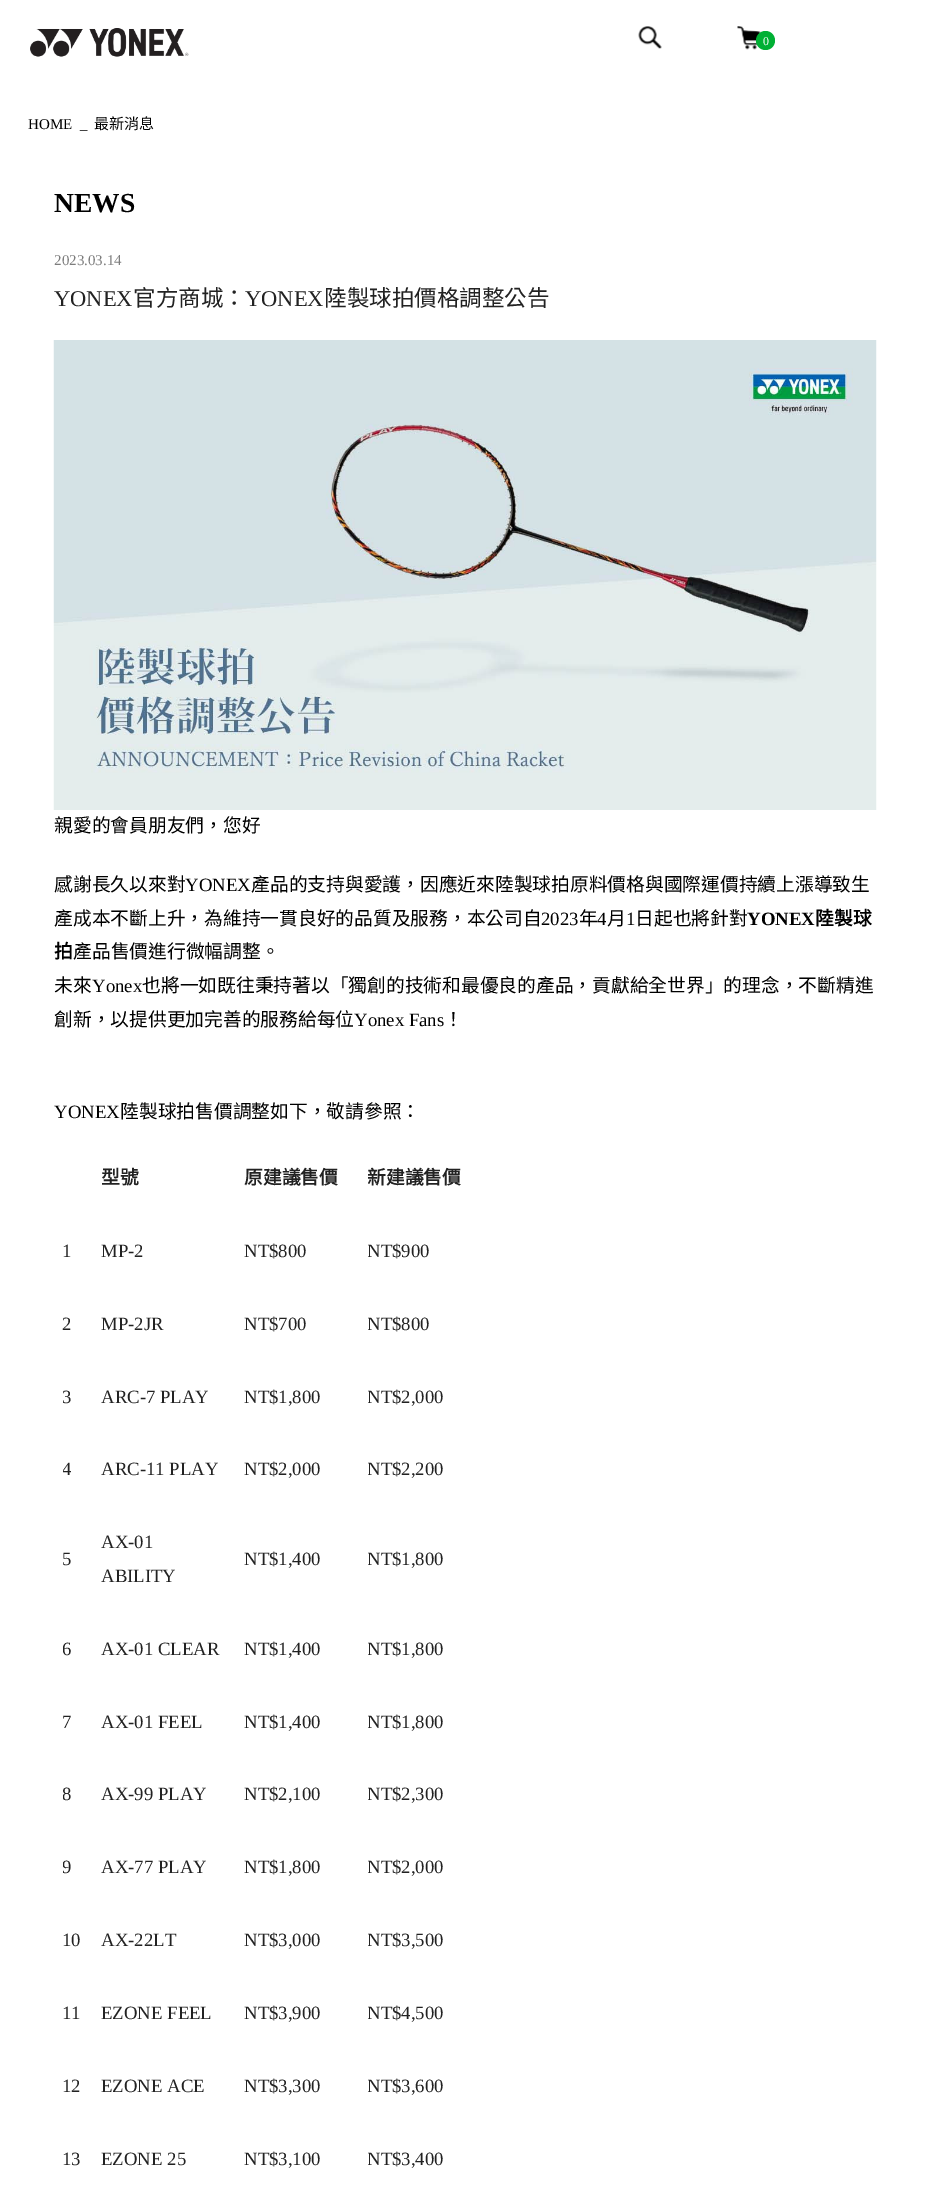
%!PS-Adobe-3.0
%%BoundingBox: 0 0 929 2192
%%LanguageLevel: 3
%%Pages: 1
%%EndComments
%%BeginProlog
/drawimage { 5 dict begin { /h /w /y /x /name } { exch def } forall
  gsave x y translate w h scale
  w h 8 [w 0 0 h 0 0] name (r) file false 3 colorimage grestore end } def
%%EndProlog
%%BeginSetup
<< /PageSize [929 2192] >> setpagedevice
%%EndSetup
%%Page: 1 1
0 2192 translate 1 -1 scale
4 setmiterlimit
1 setgray
0 0 929 2192 rectfill
(images/1.raw) 30 28 159 29 drawimage
(images/2.raw) 638 26 24 23 drawimage
(images/3.raw) 737 26 24 24 drawimage
0 0.69 0.204 setrgbcolor
newpath 765.5 40.5 9.5 0 360 arc closepath fill
(images/4.raw) 53 340 824 470 drawimage
/LiberationSerif-Regular [12 0 0 -12 0 0] selectfont
1 setgray
763 45 moveto (0) show
/LiberationSerif-Regular [15 0 0 -15 0 0] selectfont
0 setgray
28 129 moveto (HOME) show
80 129 moveto (_) show
/NotoSansCJKTC-Regular [15 0 0 -15 0 0] selectfont
94 129 moveto (最新消息) show
/LiberationSerif-Bold [27.5 0 0 -27.5 0 0] selectfont
54 212 moveto (NEWS) show
/LiberationSerif-Regular [15 0 0 -15 0 0] selectfont
0.49 setgray
54 265 moveto (2023.03.14) show
/LiberationSerif-Regular [22.5 0 0 -22.5 0 0] selectfont
0.133 setgray
54 306 moveto (YONEX) show
/NotoSansCJKTC-Regular [22.5 0 0 -22.5 0 0] selectfont
133 306 moveto (官方商城：) show
/LiberationSerif-Regular [22.5 0 0 -22.5 0 0] selectfont
245 306 moveto (YONEX) show
/NotoSansCJKTC-Regular [22.5 0 0 -22.5 0 0] selectfont
324 306 moveto (陸製球拍價格調整公告) show
/NotoSansCJKTC-Regular [18.75 0 0 -18.75 0 0] selectfont
0 setgray
54 832 moveto (親愛的會員朋友們，您好) show
54 891 moveto (感謝長久以來對) show
/LiberationSerif-Regular [18.75 0 0 -18.75 0 0] selectfont
185 891 moveto (YONEX) show
/NotoSansCJKTC-Regular [18.75 0 0 -18.75 0 0] selectfont
251 891 moveto (產品的支持與愛護，因應近來陸製球拍原料價格與國際運價持續上漲導致生) show
54 925 moveto (產成本不斷上升，為維持一貫良好的品質及服務，本公司自) show
/LiberationSerif-Regular [18.75 0 0 -18.75 0 0] selectfont
541 925 moveto (2023) show
/NotoSansCJKTC-Regular [18.75 0 0 -18.75 0 0] selectfont
579 925 moveto (年) show
/LiberationSerif-Regular [18.75 0 0 -18.75 0 0] selectfont
597 925 moveto (4) show
/NotoSansCJKTC-Regular [18.75 0 0 -18.75 0 0] selectfont
607 925 moveto (月) show
/LiberationSerif-Regular [18.75 0 0 -18.75 0 0] selectfont
626 925 moveto (1) show
/NotoSansCJKTC-Regular [18.75 0 0 -18.75 0 0] selectfont
635 925 moveto (日起也將針對) show
/LiberationSerif-Bold [18.75 0 0 -18.75 0 0] selectfont
747 925 moveto (YONEX) show
/NotoSansCJKTC-Bold [18.75 0 0 -18.75 0 0] selectfont
815 925 moveto (陸製球) show
54 958 moveto (拍) show
/NotoSansCJKTC-Regular [18.75 0 0 -18.75 0 0] selectfont
73 958 moveto (產品售價進行微幅調整。) show
54 992 moveto (未來) show
/LiberationSerif-Regular [18.75 0 0 -18.75 0 0] selectfont
92 992 moveto (Yonex) show
/NotoSansCJKTC-Regular [18.75 0 0 -18.75 0 0] selectfont
142 992 moveto (也將一如既往秉持著以「獨創的技術和最優良的產品，貢獻給全世界」的理念，不斷精進) show
54 1026 moveto (創新，以提供更加完善的服務給每位) show
/LiberationSerif-Regular [18.75 0 0 -18.75 0 0] selectfont
354 1026 moveto (Yonex Fans) show
/NotoSansCJKTC-Regular [18.75 0 0 -18.75 0 0] selectfont
444 1026 moveto (！) show
/LiberationSerif-Regular [18.75 0 0 -18.75 0 0] selectfont
54 1118 moveto (YONEX) show
/NotoSansCJKTC-Regular [18.75 0 0 -18.75 0 0] selectfont
120 1118 moveto (陸製球拍售價調整如下，敬請參照：) show
/NotoSansCJKTC-Bold [18.75 0 0 -18.75 0 0] selectfont
0.133 setgray
101 1184 moveto (型號) show
244 1184 moveto (原建議售價) show
gsave
368 1161 112 34 rectclip
367 1184 moveto (新建議售價) show
grestore
/LiberationSerif-Regular [18.75 0 0 -18.75 0 0] selectfont
62 1257 moveto (1) show
101 1257 moveto (MP-2) show
244 1257 moveto (NT$800) show
gsave
368 1235 112 34 rectclip
367 1257 moveto (NT$900) show
grestore
62 1330 moveto (2) show
101 1330 moveto (MP-2JR) show
244 1330 moveto (NT$700) show
gsave
368 1308 112 33 rectclip
367 1330 moveto (NT$800) show
grestore
gsave
63 1380 22 34 rectclip
62 1403 moveto (3) show
grestore
101 1403 moveto (ARC-7 PLAY) show
244 1403 moveto (NT$1,800) show
gsave
368 1380 112 34 rectclip
367 1403 moveto (NT$2,000) show
grestore
gsave
63 1453 22 33 rectclip
62 1475 moveto (4) show
grestore
101 1475 moveto (ARC-11 PLAY) show
244 1475 moveto (NT$2,000) show
gsave
368 1453 112 33 rectclip
367 1475 moveto (NT$2,200) show
grestore
62 1565 moveto (5) show
101 1548 moveto (AX-01) show
101 1582 moveto (ABILITY) show
244 1565 moveto (NT$1,400) show
gsave
368 1543 112 33 rectclip
367 1565 moveto (NT$1,800) show
grestore
gsave
63 1633 22 33 rectclip
62 1655 moveto (6) show
grestore
101 1655 moveto (AX-01 CLEAR) show
244 1655 moveto (NT$1,400) show
gsave
368 1633 112 33 rectclip
367 1655 moveto (NT$1,800) show
grestore
62 1728 moveto (7) show
101 1728 moveto (AX-01 FEEL) show
244 1728 moveto (NT$1,400) show
gsave
368 1705 112 34 rectclip
367 1728 moveto (NT$1,800) show
grestore
gsave
63 1778 22 33 rectclip
62 1800 moveto (8) show
grestore
101 1800 moveto (AX-99 PLAY) show
244 1800 moveto (NT$2,100) show
gsave
368 1778 112 33 rectclip
367 1800 moveto (NT$2,300) show
grestore
gsave
63 1851 22 34 rectclip
62 1873 moveto (9) show
grestore
101 1873 moveto (AX-77 PLAY) show
244 1873 moveto (NT$1,800) show
gsave
368 1851 112 34 rectclip
367 1873 moveto (NT$2,000) show
grestore
62 1946 moveto (10) show
101 1946 moveto (AX-22LT) show
244 1946 moveto (NT$3,000) show
gsave
368 1924 112 34 rectclip
367 1946 moveto (NT$3,500) show
grestore
62 2019 moveto (11) show
101 2019 moveto (EZONE FEEL) show
244 2019 moveto (NT$3,900) show
gsave
368 1996 112 34 rectclip
367 2019 moveto (NT$4,500) show
grestore
62 2092 moveto (12) show
101 2092 moveto (EZONE ACE) show
244 2092 moveto (NT$3,300) show
gsave
368 2069 112 34 rectclip
367 2092 moveto (NT$3,600) show
grestore
62 2165 moveto (13) show
101 2165 moveto (EZONE 25) show
244 2165 moveto (NT$3,100) show
gsave
368 2143 112 33 rectclip
367 2165 moveto (NT$3,400) show
grestore
showpage
%%EOF
